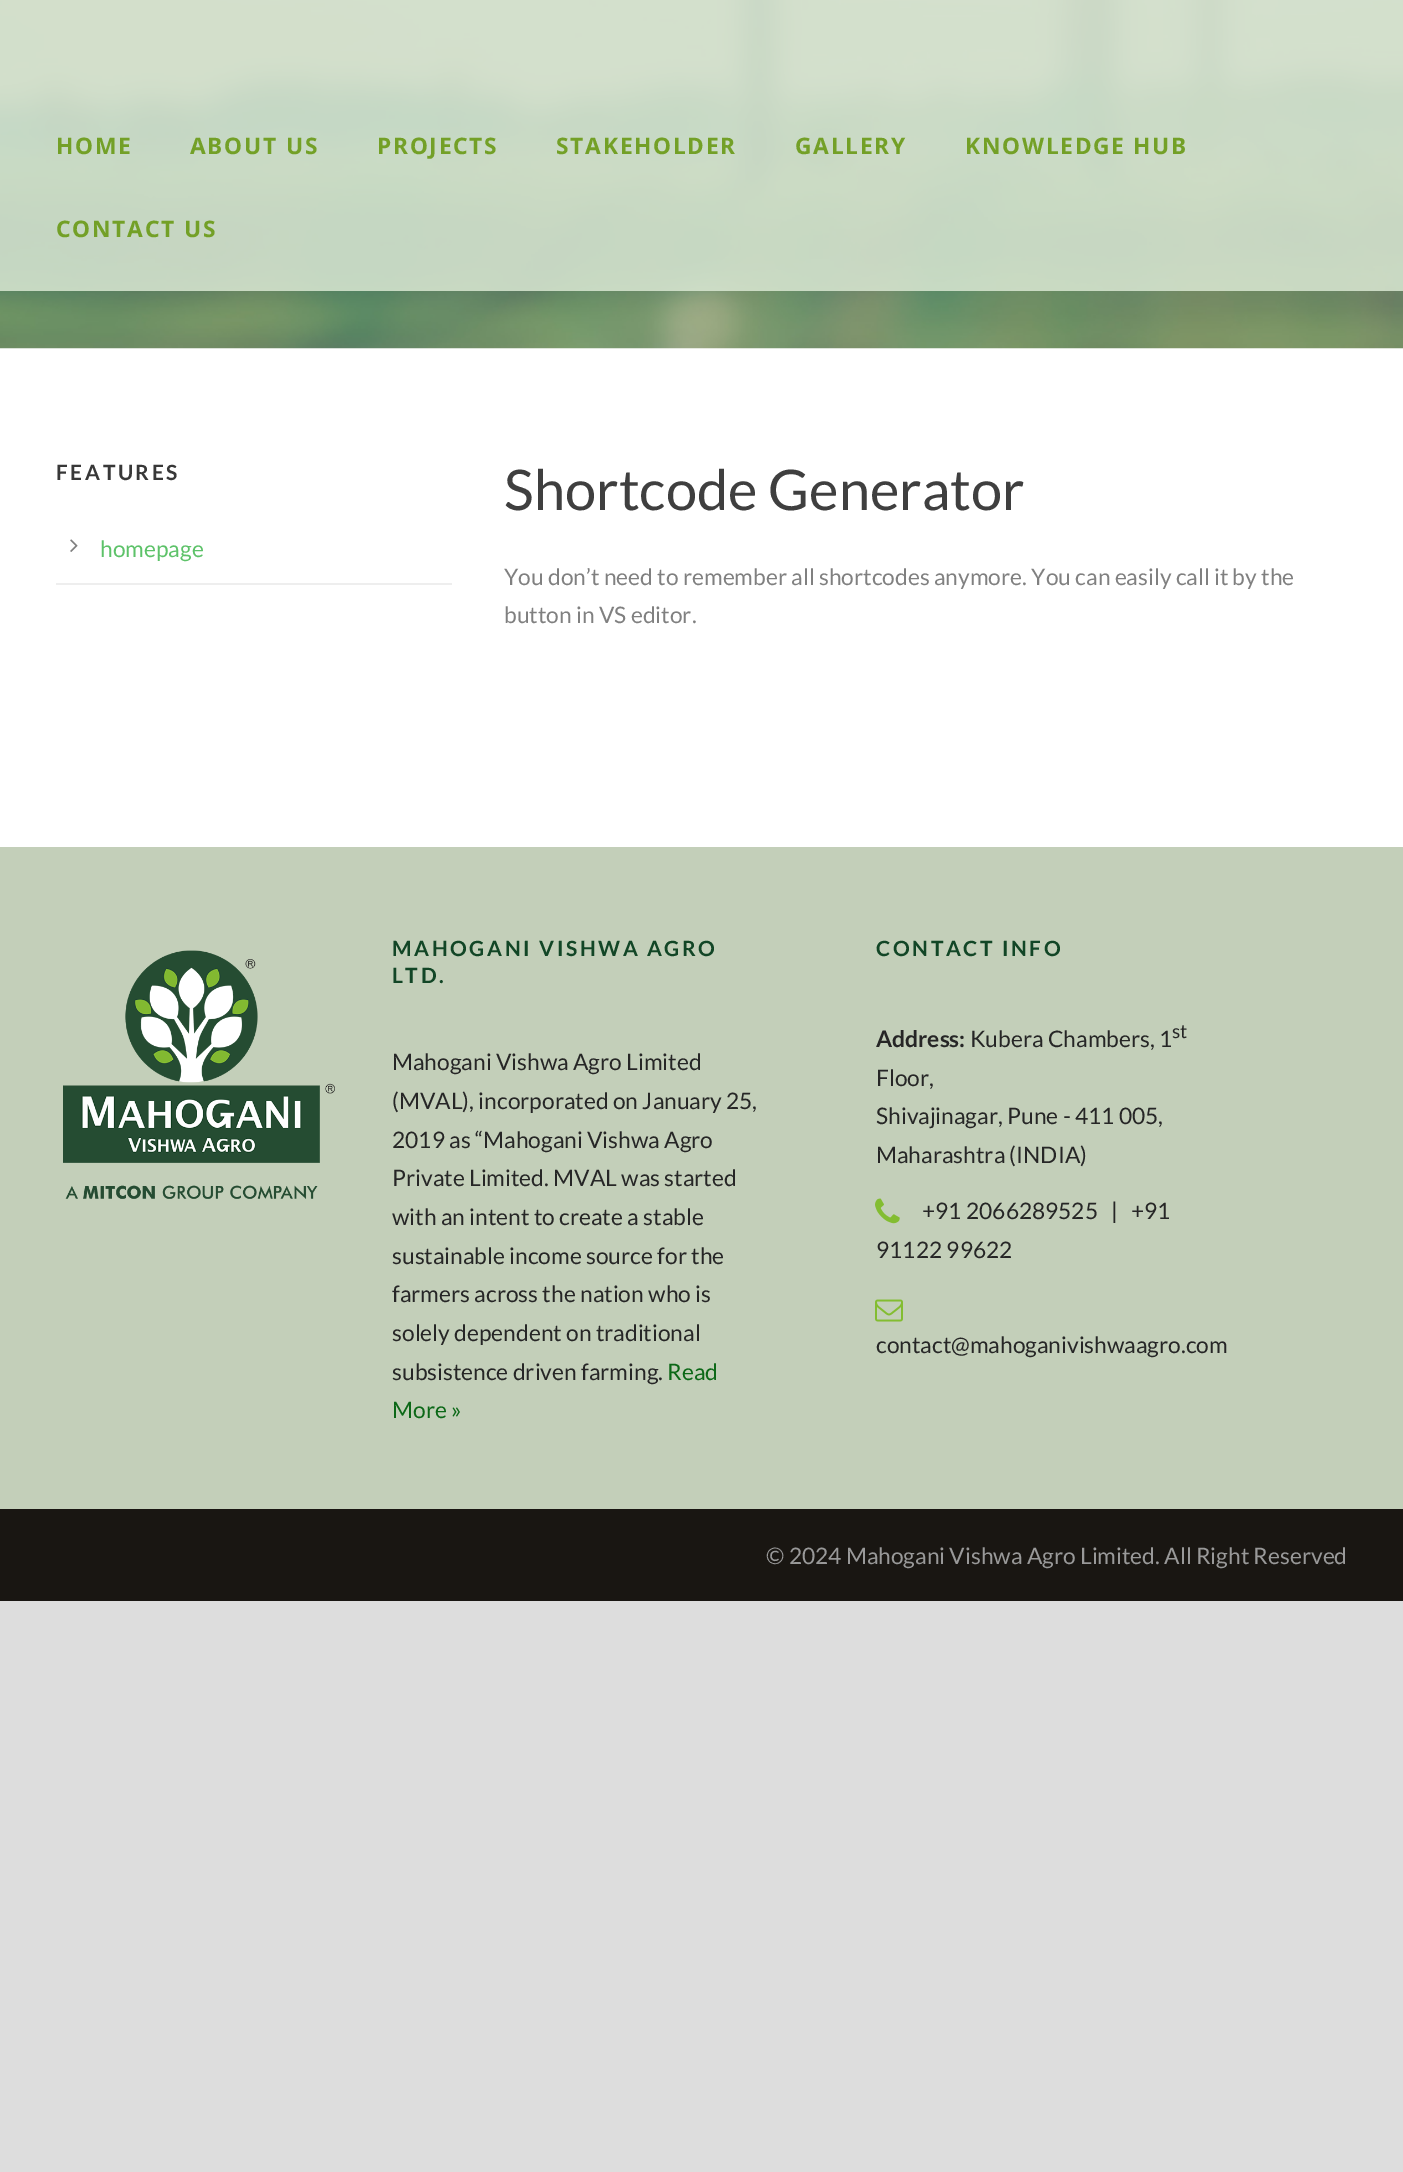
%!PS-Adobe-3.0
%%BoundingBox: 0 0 1403 2172
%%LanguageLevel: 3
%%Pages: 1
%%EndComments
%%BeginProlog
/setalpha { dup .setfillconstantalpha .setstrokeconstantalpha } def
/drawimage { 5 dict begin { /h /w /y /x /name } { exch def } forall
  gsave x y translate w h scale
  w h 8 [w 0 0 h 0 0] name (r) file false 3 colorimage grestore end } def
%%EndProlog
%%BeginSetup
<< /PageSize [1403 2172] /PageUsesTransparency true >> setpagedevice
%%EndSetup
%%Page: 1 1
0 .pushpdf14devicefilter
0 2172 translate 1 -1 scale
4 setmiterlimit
0.867 setgray
0 0 1403 2172 rectfill
1 setgray
0 348 1403 499 rectfill
(images/1.raw) 0 0 1403 349 drawimage
0.85 setalpha
0.855 0.91 0.827 setrgbcolor
0 0 1403 291 rectfill
1 setalpha
0.933 setgray
56 583 396 2 rectfill
(images/2.raw) 70 539 8 13 drawimage
0.765 0.812 0.725 setrgbcolor
0 847 1403 662 rectfill
(images/3.raw) 63 950 272 249 drawimage
(images/4.raw) 875 1198 25 26 drawimage
(images/5.raw) 875 1299 28 23 drawimage
0.098 0.086 0.071 setrgbcolor
0 1509 1403 92 rectfill
/NotoSans-Bold [22.75 0 0 -22.75 0 0] selectfont
0.451 0.627 0.153 setrgbcolor
56 154 moveto 1.75 0 (HOME) ashow
190 154 moveto 1.75 0 (ABOUT US) ashow
377 154 moveto 1.75 0 (PROJECTS) ashow
556 154 moveto 1.75 0 (STAKEHOLDER) ashow
795 154 moveto 1.75 0 (GALLERY) ashow
965 154 moveto 1.75 0 (KNOWLEDGE HUB) ashow
56 237 moveto 1.75 0 (CONTACT US) ashow
/Lato-Bold [21 0 0 -21 0 0] selectfont
0.22 setgray
56 480 moveto 2.6 0 (FEATURES) ashow
/Lato-Regular [22.75 0 0 -22.75 0 0] selectfont
0.365 0.761 0.412 setrgbcolor
100 557 moveto (homepage) show
/Lato-Regular [56 0 0 -56 0 0] selectfont
0.247 setgray
504 510 moveto (Shortcode Generator) show
/Lato-Regular [22.75 0 0 -22.75 0 0] selectfont
0.502 setgray
504 585 moveto (You don’t need to remember all shortcodes anymore. You can easily call it by the) show
504 623 moveto (button in VS editor.) show
/Lato-Bold [21 0 0 -21 0 0] selectfont
0.071 0.275 0.149 setrgbcolor
392 956 moveto 2.6 0 (MAHOGANI VISHWA AGRO) ashow
392 983 moveto 2.6 0 (LTD.) ashow
/Lato-Regular [22.75 0 0 -22.75 0 0] selectfont
0.149 setgray
392 1070 moveto (Mahogani Vishwa Agro Limited) show
392 1109 moveto (\(MVAL\), incorporated on January 25,) show
392 1148 moveto (2019 as “Mahogani Vishwa Agro) show
392 1186 moveto (Private Limited. MVAL was started) show
392 1225 moveto (with an intent to create a stable) show
392 1264 moveto (sustainable income source for the) show
392 1302 moveto (farmers across the nation who is) show
392 1341 moveto (solely dependent on traditional) show
392 1380 moveto (subsistence driven farming.) show
0.047 0.408 0.09 setrgbcolor
667 1380 moveto (Read) show
392 1418 moveto (More ») show
/Lato-Bold [21 0 0 -21 0 0] selectfont
0.071 0.275 0.149 setrgbcolor
876 956 moveto 2.6 0 (CONTACT INFO) ashow
/Lato-Bold [22.75 0 0 -22.75 0 0] selectfont
0.149 setgray
876 1047 moveto (Address:) show
/Lato-Regular [22.75 0 0 -22.75 0 0] selectfont
970 1047 moveto (Kubera Chambers, 1) show
/Lato-Regular [19 0 0 -19 0 0] selectfont
1172 1038 moveto (st) show
/Lato-Regular [22.75 0 0 -22.75 0 0] selectfont
876 1086 moveto (Floor,) show
876 1124 moveto (Shivajinagar, Pune - 411 005,) show
876 1163 moveto (Maharashtra \(INDIA\)) show
922 1219 moveto (+91 2066289525   |   +91) show
876 1258 moveto (91122 99622) show
876 1353 moveto (contact@mahoganivishwaagro.com) show
0.6 setgray
766 1564 moveto (© 2024 Mahogani Vishwa Agro Limited. All Right Reserved) show
.poppdf14devicefilter showpage
%%EOF
